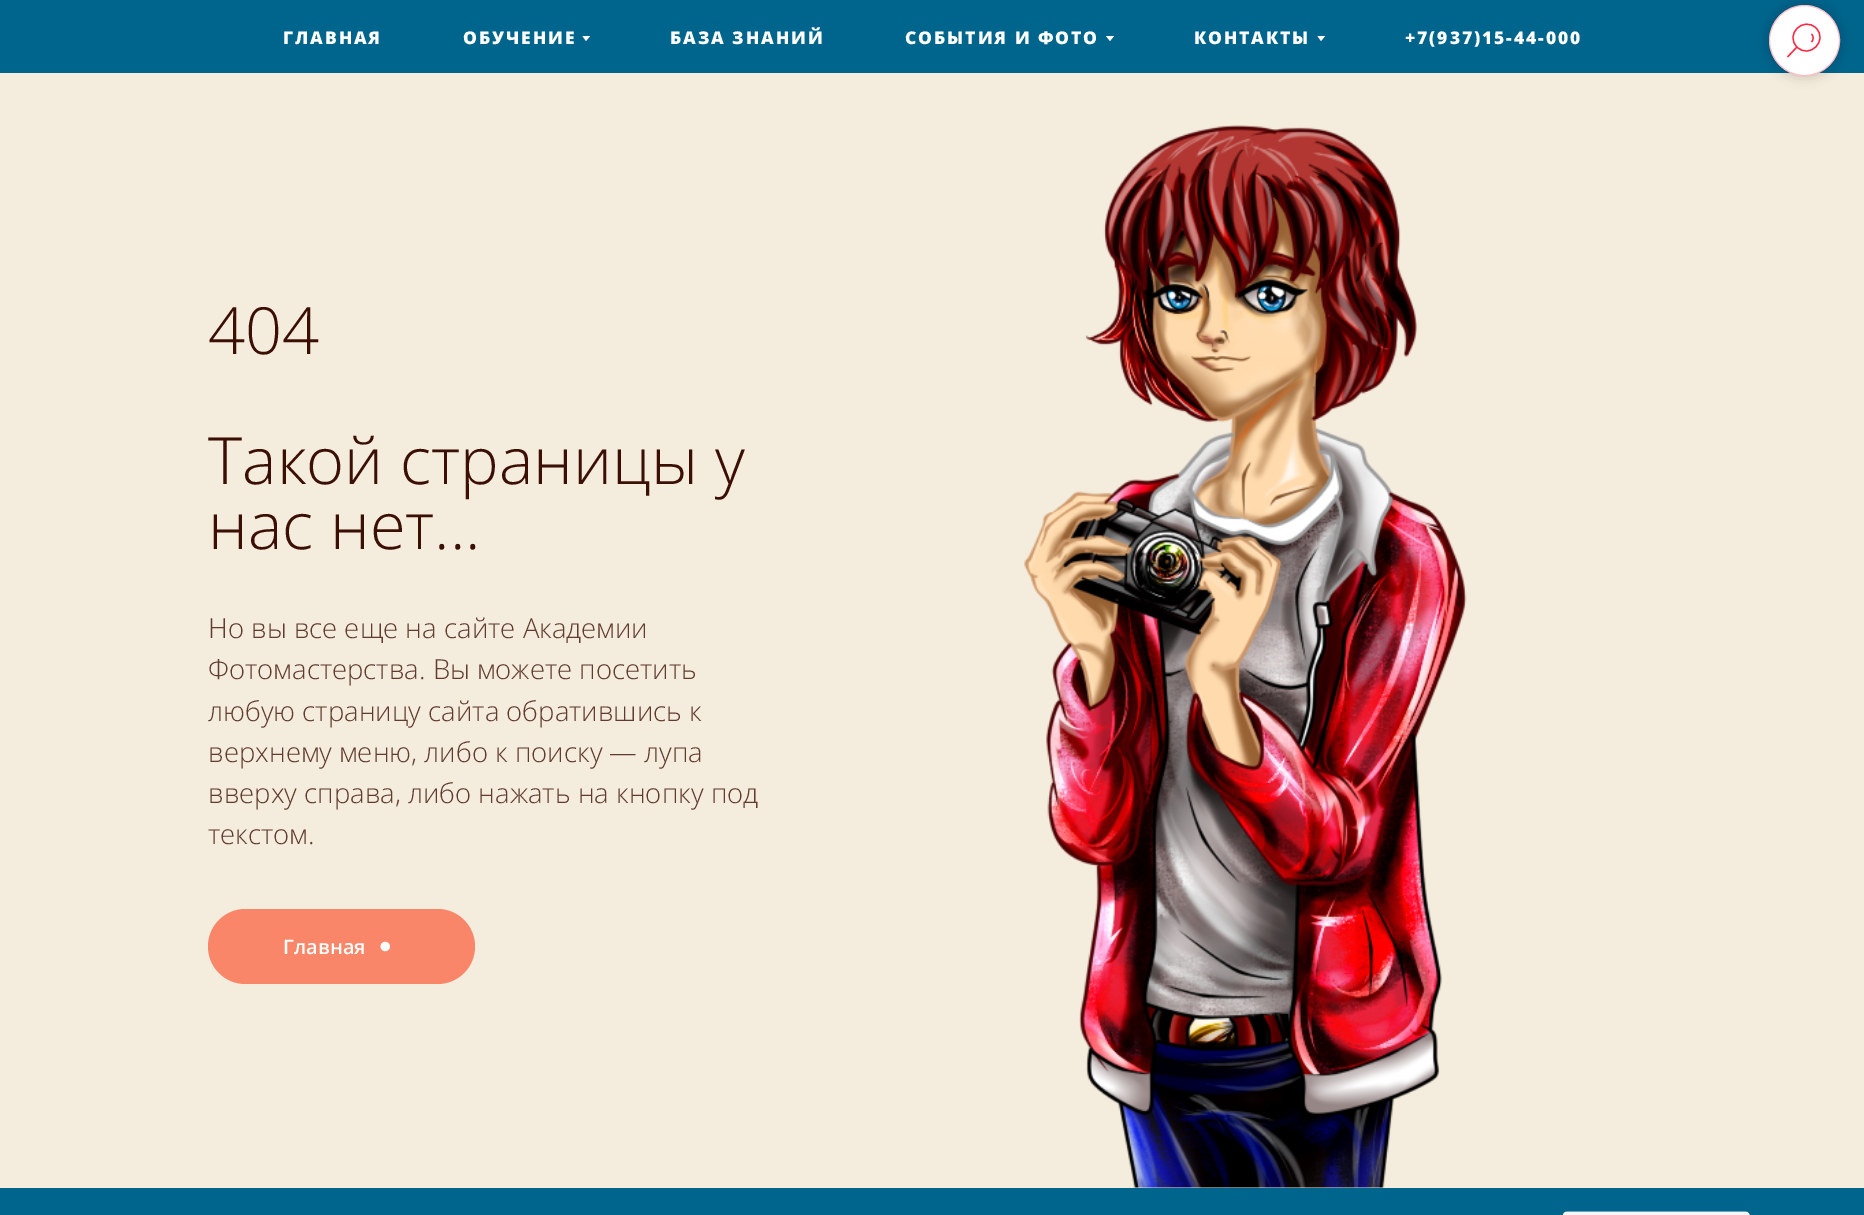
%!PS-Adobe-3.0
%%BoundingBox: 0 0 1864 1215
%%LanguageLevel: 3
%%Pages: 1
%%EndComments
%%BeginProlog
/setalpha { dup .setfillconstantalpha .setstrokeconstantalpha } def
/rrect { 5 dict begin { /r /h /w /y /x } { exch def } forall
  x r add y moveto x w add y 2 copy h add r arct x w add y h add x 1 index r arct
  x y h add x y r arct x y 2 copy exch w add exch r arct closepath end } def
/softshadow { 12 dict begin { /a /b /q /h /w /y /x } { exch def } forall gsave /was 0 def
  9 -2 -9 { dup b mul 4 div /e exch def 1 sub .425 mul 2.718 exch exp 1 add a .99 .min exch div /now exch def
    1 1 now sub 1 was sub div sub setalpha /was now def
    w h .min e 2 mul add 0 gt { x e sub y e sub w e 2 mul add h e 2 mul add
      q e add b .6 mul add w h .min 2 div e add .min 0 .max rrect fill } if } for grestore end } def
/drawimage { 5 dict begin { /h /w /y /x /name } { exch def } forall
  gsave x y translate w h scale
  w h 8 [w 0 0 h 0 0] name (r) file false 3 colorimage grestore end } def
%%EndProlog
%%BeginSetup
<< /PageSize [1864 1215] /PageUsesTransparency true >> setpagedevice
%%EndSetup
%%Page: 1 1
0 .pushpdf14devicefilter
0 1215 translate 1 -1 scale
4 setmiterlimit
0.957 0.925 0.863 setrgbcolor
0 0 1864 1215 rectfill
0 0.396 0.549 setrgbcolor
0 0 1864 73 rectfill
1 setgray
newpath 582.5 36 moveto 590 36 lineto 586 41 lineto closepath fill
newpath 1106 36 moveto 1114 36 lineto 1110 41 lineto closepath fill
newpath 1317.5 36 moveto 1325 36 lineto 1321 41 lineto closepath fill
0 setgray
1769 5 71 71 35.5 6 0.2 softshadow
1 setgray
newpath 1804.5 40.5 35 0 360 arc closepath gsave fill grestore
0.992 0.729 0.765 setrgbcolor
stroke
0.98 0.153 0.259 setrgbcolor
1.3 setlinewidth
2 setlinecap
newpath 1796.5 47.5 moveto 1788 56.5 lineto stroke
0 setlinecap
newpath 1816 28 moveto 1828.5 40.5 1809.5 59.5 1797 47 curveto 1784.5 34.5 1803.5 16 1816 28 curveto closepath 1811.5 34 moveto 1814 36.5 1813.5 40 1811.5 42 curveto stroke
0.98 0.525 0.412 setrgbcolor
208 909 267 75 37.5 rrect fill
(images/1.raw) 380 941 10 11 drawimage
(images/2.raw) 1024 125 443 1063 drawimage
0 0.396 0.549 setrgbcolor
0 1188 1864 27 rectfill
(images/3.raw) 1563 1211 187 4 drawimage
/OpenSans-ExtraBold [17.5 0 0 -17.5 0 0] selectfont
1 setgray
283 44 moveto 1.9 0 (ГЛАВНАЯ) ashow
463 44 moveto 1.9 0 (ОБУЧЕНИЕ) ashow
670 44 moveto 1.9 0 (БАЗА ЗНАНИЙ) ashow
905 44 moveto 1.9 0 (СОБЫТИЯ И ФОТО) ashow
1194 44 moveto 1.9 0 (КОНТАКТЫ) ashow
1405 44 moveto 1.9 0 (+7\(937\)15-44-000) ashow
/OpenSans-Light [65 0 0 -65 0 0] selectfont
0.235 0.059 0.016 setrgbcolor
208 354 moveto (404) show
208 484 moveto (Такой страницы у) show
208 549 moveto (нас нет...) show
/OpenSans-Light [27.5 0 0 -27.5 0 0] selectfont
0.38 0.231 0.184 setrgbcolor
208 638 moveto (Но вы все еще на сайте Академии) show
208 679 moveto (Фотомастерства. Вы можете посетить) show
208 721 moveto (любую страницу сайта обратившись к) show
208 762 moveto (верхнему меню, либо к поиску — лупа) show
208 803 moveto (вверху справа, либо нажать на кнопку под) show
208 844 moveto (текстом.) show
/OpenSans-SemiBold [20 0 0 -20 0 0] selectfont
1 setgray
283 954 moveto (Главная) show
.poppdf14devicefilter showpage
%%EOF
